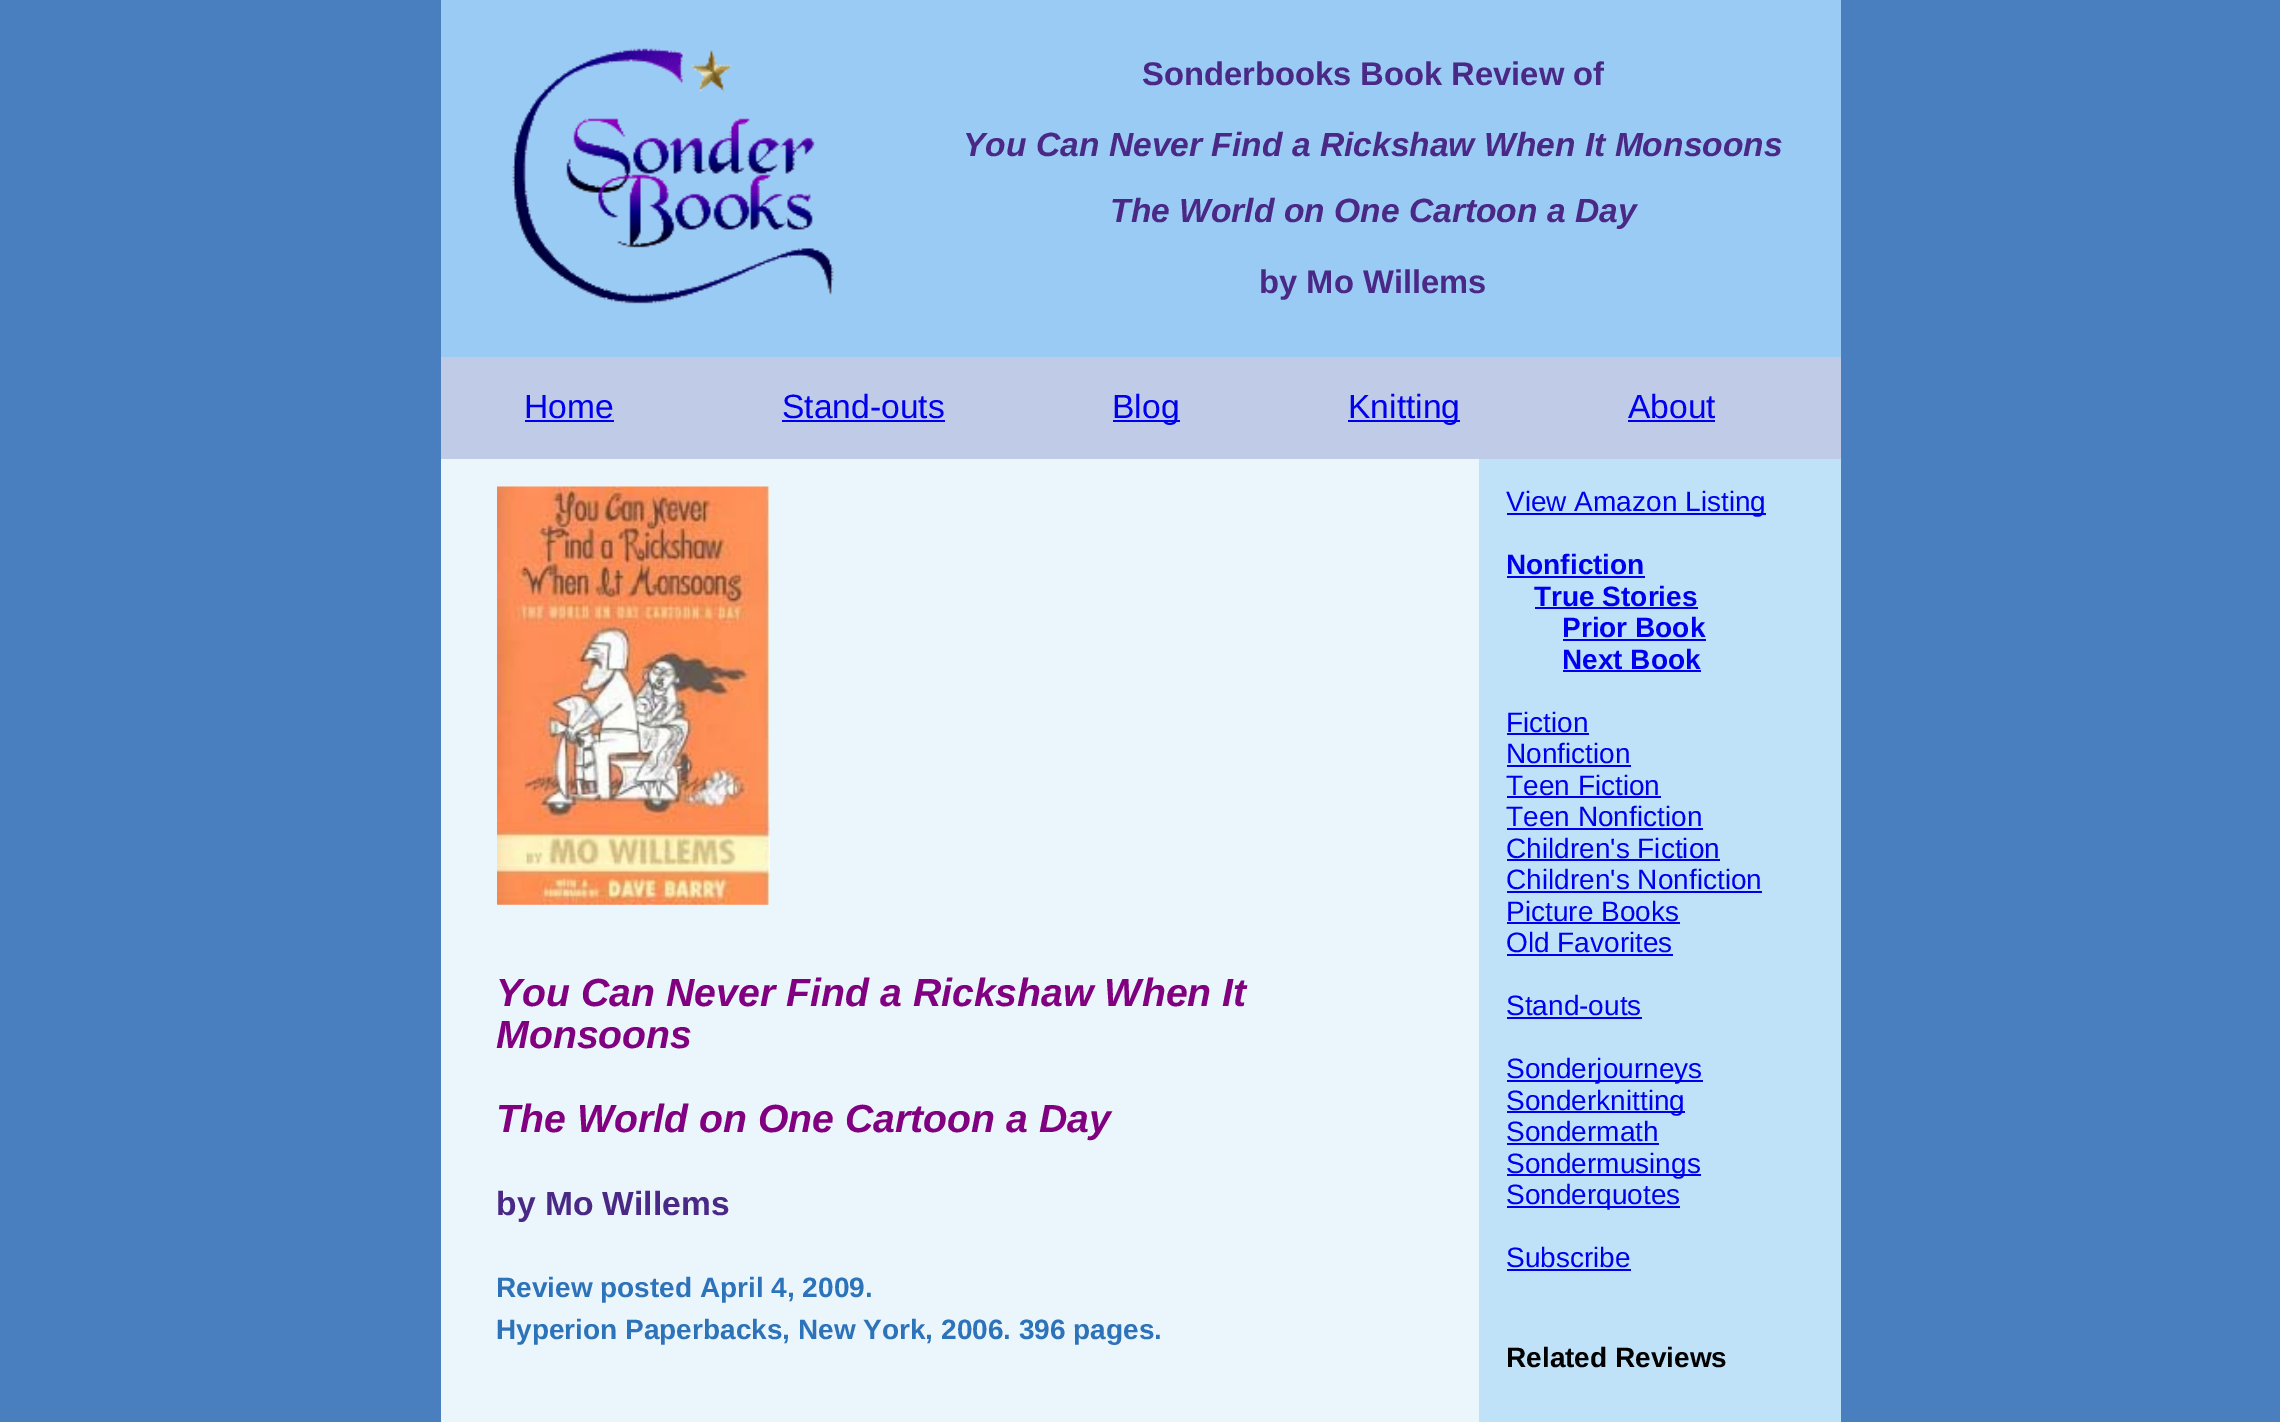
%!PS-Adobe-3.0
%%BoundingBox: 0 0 2280 1422
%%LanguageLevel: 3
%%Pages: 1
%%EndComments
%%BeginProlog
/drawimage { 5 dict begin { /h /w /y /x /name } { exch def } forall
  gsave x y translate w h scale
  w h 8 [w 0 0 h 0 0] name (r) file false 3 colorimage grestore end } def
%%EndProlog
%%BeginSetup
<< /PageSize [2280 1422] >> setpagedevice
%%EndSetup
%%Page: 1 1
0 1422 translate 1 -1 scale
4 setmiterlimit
0.286 0.498 0.749 setrgbcolor
0 0 2280 1422 rectfill
0.604 0.796 0.957 setrgbcolor
441 0 1400 357 rectfill
(images/1.raw) 512 48 322 256 drawimage
0.753 0.796 0.906 setrgbcolor
441 357 1400 102 rectfill
0 0 0.933 setrgbcolor
525 420 89 2 rectfill
782 420 163 2 rectfill
1113 420 67 2 rectfill
1348 420 112 2 rectfill
1628 420 87 2 rectfill
0.922 0.961 0.988 setrgbcolor
441 459 1038 963 rectfill
(images/2.raw) 497 486 273 419 drawimage
0.749 0.886 0.976 setrgbcolor
1479 459 362 963 rectfill
0 0 0.933 setrgbcolor
1507 513 259 2 rectfill
1507 576 138 2 rectfill
1535 607 163 2 rectfill
1563 639 143 2 rectfill
1563 670 138 2 rectfill
1507 733 82 2 rectfill
1507 765 124 2 rectfill
1507 796 154 2 rectfill
1507 828 196 2 rectfill
1507 859 213 2 rectfill
1507 891 255 2 rectfill
1507 922 173 2 rectfill
1507 954 166 2 rectfill
1507 1017 135 2 rectfill
1507 1080 196 2 rectfill
1507 1111 178 2 rectfill
1507 1143 152 2 rectfill
1507 1174 194 2 rectfill
1507 1206 173 2 rectfill
1507 1269 124 2 rectfill
/LiberationSans-Bold [32.75 0 0 -32.75 0 0] selectfont
0.29 0.157 0.522 setrgbcolor
1142 85 moveto (Sonderbooks Book Review of) show
/LiberationSans-BoldItalic [33.6 0 0 -33.6 0 0] selectfont
963 156 moveto (You Can Never Find a Rickshaw When It Monsoons) show
1110 222 moveto (The World on One Cartoon a Day) show
/LiberationSans-Bold [32.75 0 0 -32.75 0 0] selectfont
1259 293 moveto (by Mo Willems) show
/LiberationSans-Regular [33.6 0 0 -33.6 0 0] selectfont
0 0 0.933 setrgbcolor
524 418 moveto (Home) show
782 418 moveto (Stand-outs) show
1112 418 moveto (Blog) show
1348 418 moveto (Knitting) show
1628 418 moveto (About) show
/LiberationSans-BoldItalic [39.25 0 0 -39.25 0 0] selectfont
0.502 0 0.502 setrgbcolor
496 1006 moveto (You Can Never Find a Rickshaw When It) show
496 1048 moveto (Monsoons) show
496 1132 moveto (The World on One Cartoon a Day) show
/LiberationSans-Bold [33.6 0 0 -33.6 0 0] selectfont
0.29 0.157 0.522 setrgbcolor
496 1215 moveto (by Mo Willems) show
/LiberationSans-Bold [28 0 0 -28 0 0] selectfont
0.176 0.451 0.725 setrgbcolor
496 1297 moveto (Review posted April 4, 2009.) show
496 1339 moveto (Hyperion Paperbacks, New York, 2006. 396 pages.) show
/LiberationSans-Regular [28 0 0 -28 0 0] selectfont
0 0 0.933 setrgbcolor
1506 511 moveto (View Amazon Listing) show
/LiberationSans-Bold [28 0 0 -28 0 0] selectfont
1506 574 moveto (Nonfiction) show
1534 606 moveto (True Stories) show
1562 637 moveto (Prior Book) show
1562 669 moveto (Next Book) show
/LiberationSans-Regular [28 0 0 -28 0 0] selectfont
1506 732 moveto (Fiction) show
1506 763 moveto (Nonfiction) show
1506 795 moveto (Teen Fiction) show
1506 826 moveto (Teen Nonfiction) show
1506 858 moveto (Children's Fiction) show
1506 889 moveto (Children's Nonfiction) show
1506 921 moveto (Picture Books) show
1506 952 moveto (Old Favorites) show
1506 1015 moveto (Stand-outs) show
1506 1078 moveto (Sonderjourneys) show
1506 1110 moveto (Sonderknitting) show
1506 1141 moveto (Sondermath) show
1506 1173 moveto (Sondermusings) show
1506 1204 moveto (Sonderquotes) show
1506 1267 moveto (Subscribe) show
/LiberationSans-Bold [28 0 0 -28 0 0] selectfont
0 setgray
1506 1367 moveto (Related Reviews) show
showpage
%%EOF
